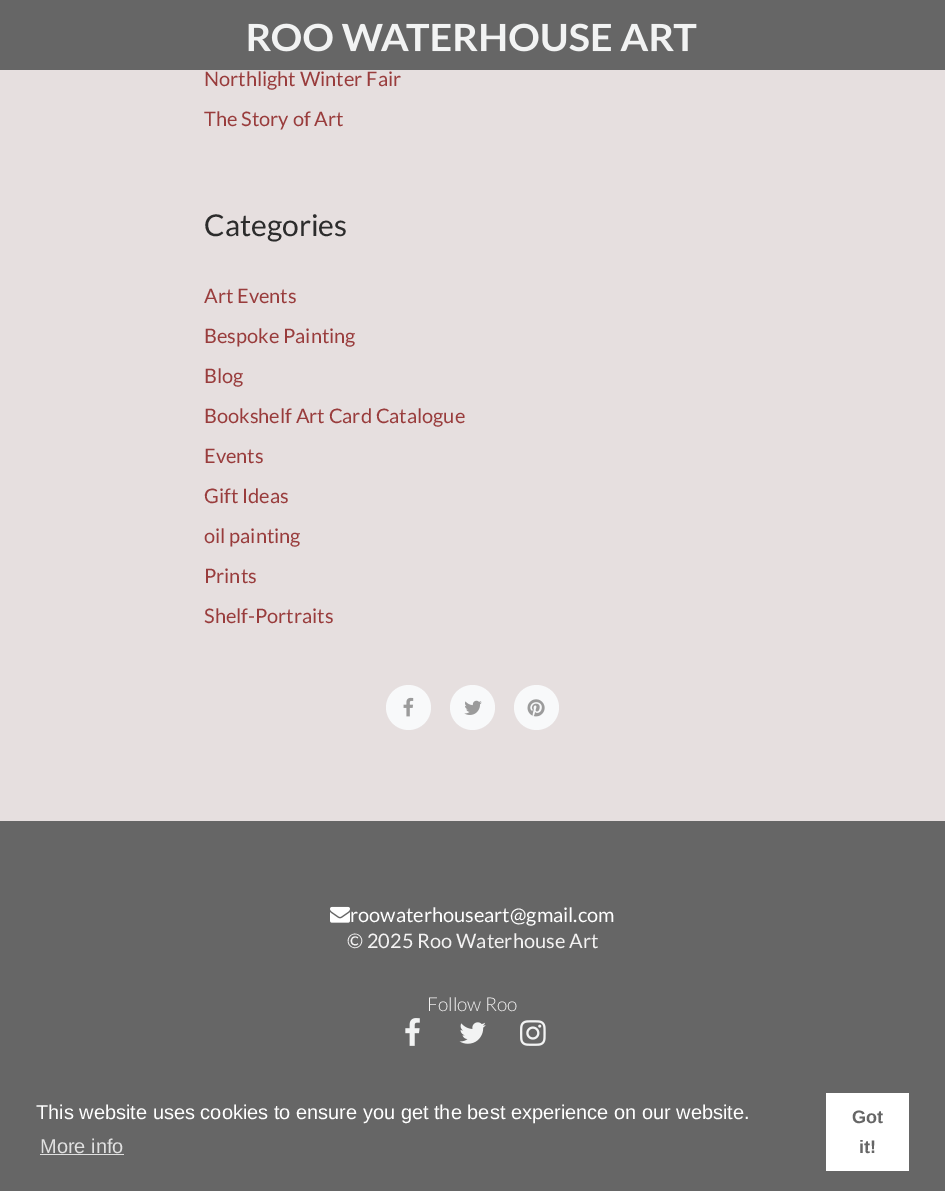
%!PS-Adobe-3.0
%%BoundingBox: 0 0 945 1191
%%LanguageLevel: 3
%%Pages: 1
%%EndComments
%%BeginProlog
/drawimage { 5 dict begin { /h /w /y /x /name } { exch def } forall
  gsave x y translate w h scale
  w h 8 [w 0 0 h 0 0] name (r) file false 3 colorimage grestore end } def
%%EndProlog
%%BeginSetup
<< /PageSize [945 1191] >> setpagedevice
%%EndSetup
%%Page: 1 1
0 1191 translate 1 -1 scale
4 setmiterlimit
0.902 0.875 0.875 setrgbcolor
0 0 945 1191 rectfill
0.4 setgray
0 0 945 70 rectfill
(images/1.raw) 248 23 449 29 drawimage
0.973 0.976 0.98 setrgbcolor
newpath 408.5 707.5 22.5 0 360 arc closepath fill
(images/2.raw) 403 697 11 20 drawimage
newpath 472.5 707.5 22.5 0 360 arc closepath fill
(images/3.raw) 464 700 18 15 drawimage
newpath 536.5 707.5 22.5 0 360 arc closepath fill
(images/4.raw) 527 699 18 18 drawimage
0.4 setgray
0 821 945 370 rectfill
(images/5.raw) 330 906 20 17 drawimage
(images/6.raw) 405 1018 15 28 drawimage
(images/7.raw) 459 1022 27 22 drawimage
(images/8.raw) 520 1020 26 26 drawimage
0.878 setgray
40 1154 84 1 rectfill
1 setgray
826 1093 83 78 rectfill
/Lato-Regular [20 0 0 -20 0 0] selectfont
0.6 0.235 0.235 setrgbcolor
204 86 moveto (Northlight Winter Fair) show
204 126 moveto (The Story of Art) show
/Lato-Regular [30 0 0 -30 0 0] selectfont
0.173 setgray
204 236 moveto (Categories) show
/Lato-Regular [20 0 0 -20 0 0] selectfont
0.6 0.235 0.235 setrgbcolor
204 303 moveto (Art Events) show
204 343 moveto (Bespoke Painting) show
204 383 moveto (Blog) show
204 423 moveto (Bookshelf Art Card Catalogue) show
204 463 moveto (Events) show
204 503 moveto (Gift Ideas) show
204 543 moveto (oil painting) show
204 583 moveto (Prints) show
204 623 moveto (Shelf-Portraits) show
1 setgray
350 922 moveto (roowaterhouseart@gmail.com) show
0.953 0.949 0.949 setrgbcolor
347 948 moveto (© 2025 Roo Waterhouse Art) show
/Lato-Light [19 0 0 -19 0 0] selectfont
427 1011 moveto (Follow Roo) show
/LiberationSans-Regular [20 0 0 -20 0 0] selectfont
1 setgray
36 1119 moveto (This website uses cookies to ensure you get the best experience on our website.) show
0.878 setgray
40 1153 moveto (More info) show
/LiberationSans-Bold [18 0 0 -18 0 0] selectfont
0.4 setgray
852 1123 moveto (Got) show
859 1153 moveto (it!) show
showpage
%%EOF
